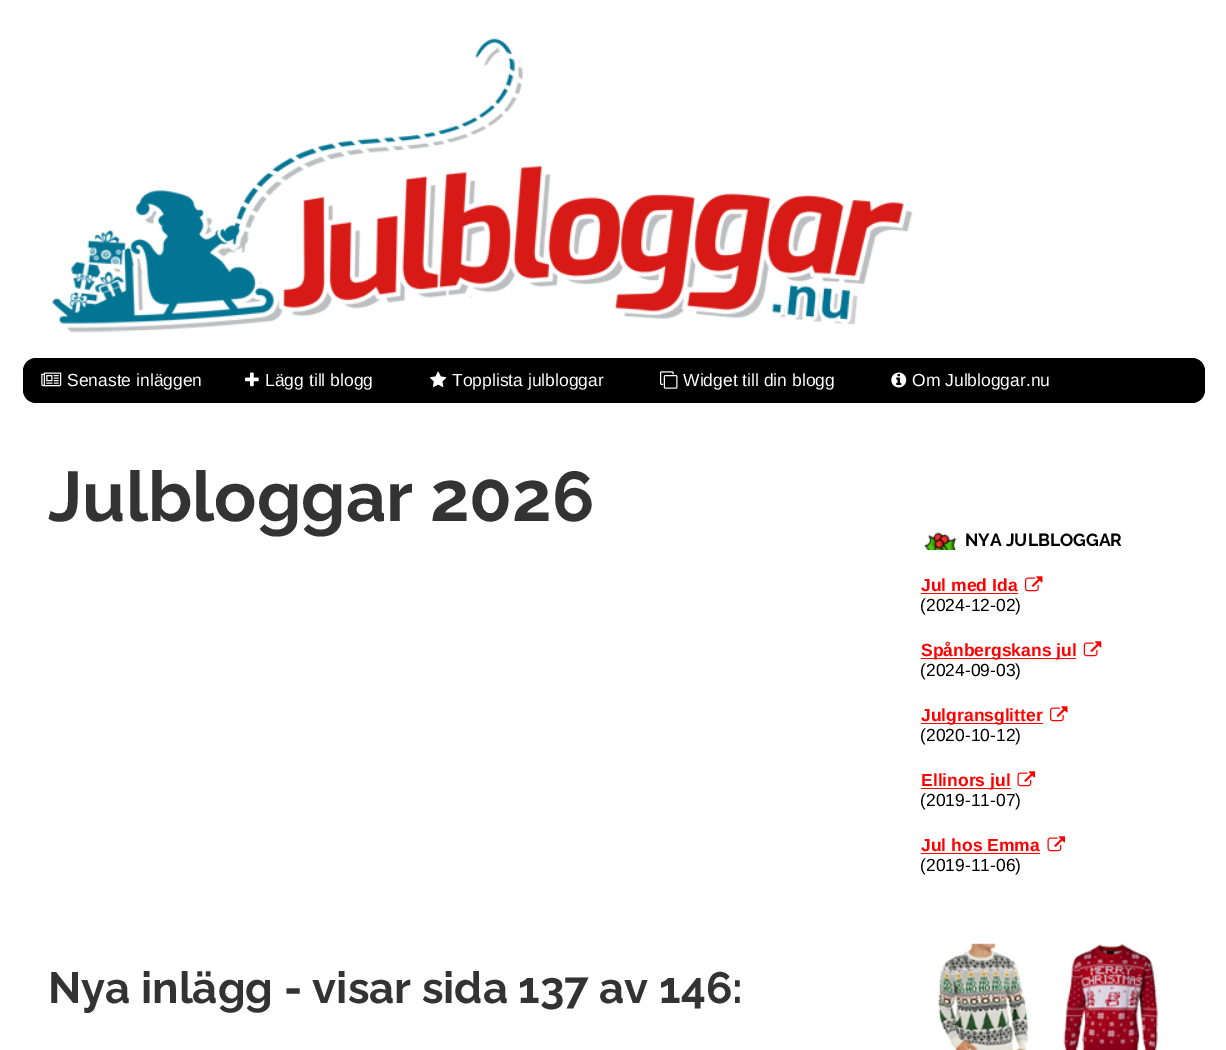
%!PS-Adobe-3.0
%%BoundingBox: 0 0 1226 1050
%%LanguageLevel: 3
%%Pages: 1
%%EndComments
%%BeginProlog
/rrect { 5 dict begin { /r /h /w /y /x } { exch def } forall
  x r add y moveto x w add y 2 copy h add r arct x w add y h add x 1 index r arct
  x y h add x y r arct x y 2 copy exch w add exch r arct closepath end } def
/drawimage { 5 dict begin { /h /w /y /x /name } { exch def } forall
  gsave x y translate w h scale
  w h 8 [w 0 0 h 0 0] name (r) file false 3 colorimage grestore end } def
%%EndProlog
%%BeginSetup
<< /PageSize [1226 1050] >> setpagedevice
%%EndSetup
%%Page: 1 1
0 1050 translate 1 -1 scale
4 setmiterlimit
1 setgray
0 0 1226 1050 rectfill
(images/1.raw) 52 38 861 295 drawimage
0 setgray
23 358 1182 45 13 rrect fill
(images/2.raw) 41 372 21 15 drawimage
(images/3.raw) 245 372 14 15 drawimage
(images/4.raw) 430 371 17 16 drawimage
(images/5.raw) 660 371 18 18 drawimage
(images/6.raw) 891 372 16 16 drawimage
(images/7.raw) 923 532 34 18 drawimage
1 0 0 setrgbcolor
921 593 97 1 rectfill
(images/8.raw) 1025 576 18 16 drawimage
921 658 155 1 rectfill
(images/9.raw) 1083 641 19 16 drawimage
921 723 122 1 rectfill
(images/8.raw) 1050 706 18 16 drawimage
921 788 90 1 rectfill
(images/10.raw) 1017 771 18 16 drawimage
921 853 119 1 rectfill
(images/10.raw) 1047 836 18 16 drawimage
(images/11.raw) 938 943 220 107 drawimage
/LiberationSans-Regular [17.5 0 0 -17.5 0 0] selectfont
1 setgray
67 386 moveto (Senaste inläggen) show
265 386 moveto (Lägg till blogg) show
452 386 moveto (Topplista julbloggar) show
683 386 moveto (Widget till din blogg) show
912 386 moveto (Om Julbloggar.nu) show
/Raleway-Bold [70 0 0 -70 0 0] selectfont
0.2 setgray
48 521 moveto (Julbloggar 2026) show
/Raleway-Bold [43.75 0 0 -43.75 0 0] selectfont
48 1003 moveto (Nya inlägg - visar sida 137 av 146:) show
/Raleway-Bold [17.5 0 0 -17.5 0 0] selectfont
0 setgray
965 546 moveto (NYA JULBLOGGAR) show
/LiberationSans-Bold [17.5 0 0 -17.5 0 0] selectfont
1 0 0 setrgbcolor
921 591 moveto (Jul med Ida) show
/LiberationSans-Regular [17.5 0 0 -17.5 0 0] selectfont
0 setgray
920 611 moveto (\(2024-12-02\)) show
/LiberationSans-Bold [17.5 0 0 -17.5 0 0] selectfont
1 0 0 setrgbcolor
921 656 moveto (Spånbergskans jul) show
/LiberationSans-Regular [17.5 0 0 -17.5 0 0] selectfont
0 setgray
920 676 moveto (\(2024-09-03\)) show
/LiberationSans-Bold [17.5 0 0 -17.5 0 0] selectfont
1 0 0 setrgbcolor
921 721 moveto (Julgransglitter) show
/LiberationSans-Regular [17.5 0 0 -17.5 0 0] selectfont
0 setgray
920 741 moveto (\(2020-10-12\)) show
/LiberationSans-Bold [17.5 0 0 -17.5 0 0] selectfont
1 0 0 setrgbcolor
921 786 moveto (Ellinors jul) show
/LiberationSans-Regular [17.5 0 0 -17.5 0 0] selectfont
0 setgray
920 806 moveto (\(2019-11-07\)) show
/LiberationSans-Bold [17.5 0 0 -17.5 0 0] selectfont
1 0 0 setrgbcolor
921 851 moveto (Jul hos Emma) show
/LiberationSans-Regular [17.5 0 0 -17.5 0 0] selectfont
0 setgray
920 871 moveto (\(2019-11-06\)) show
showpage
%%EOF
